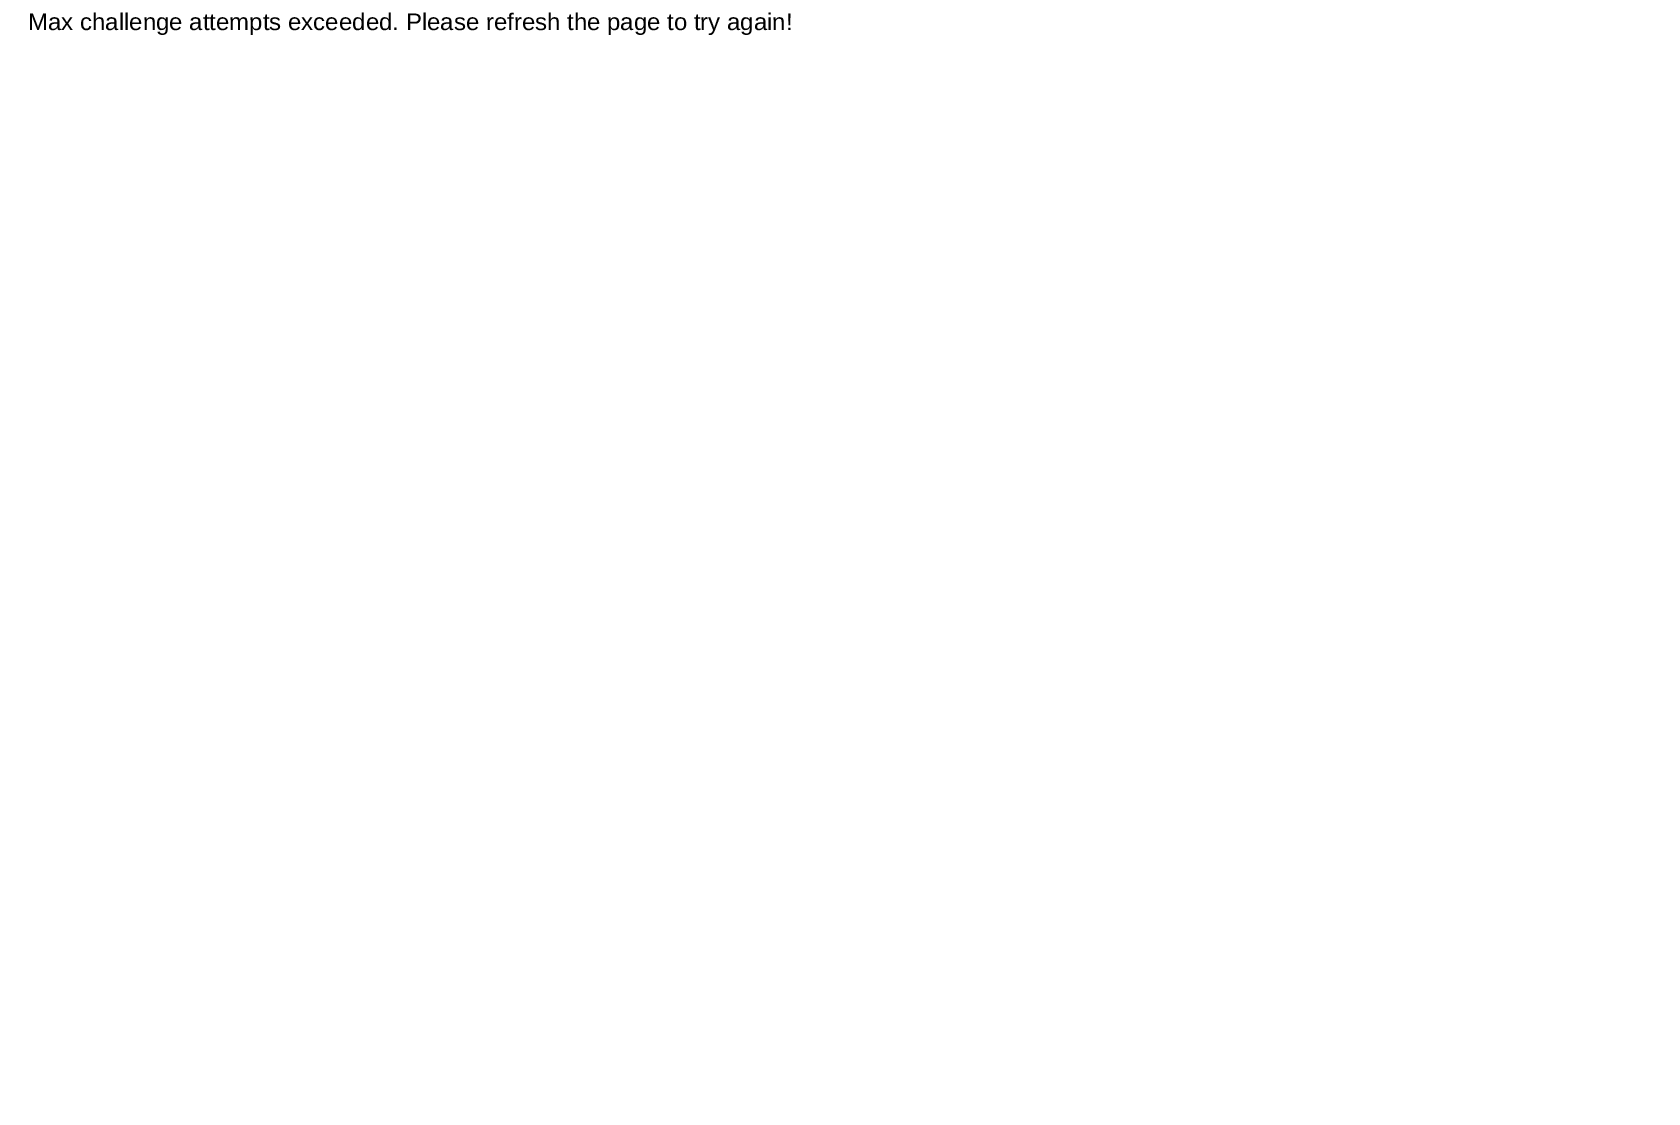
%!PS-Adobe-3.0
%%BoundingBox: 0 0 1680 1125
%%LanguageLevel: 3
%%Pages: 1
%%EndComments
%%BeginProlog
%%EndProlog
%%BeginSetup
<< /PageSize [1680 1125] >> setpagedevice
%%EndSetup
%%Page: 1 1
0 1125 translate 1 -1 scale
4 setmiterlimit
1 setgray
0 0 1680 1125 rectfill
/LiberationSans-Regular [24 0 0 -24 0 0] selectfont
0 setgray
28 30 moveto (Max challenge attempts exceeded. Please refresh the page to try again!) show
showpage
%%EOF
